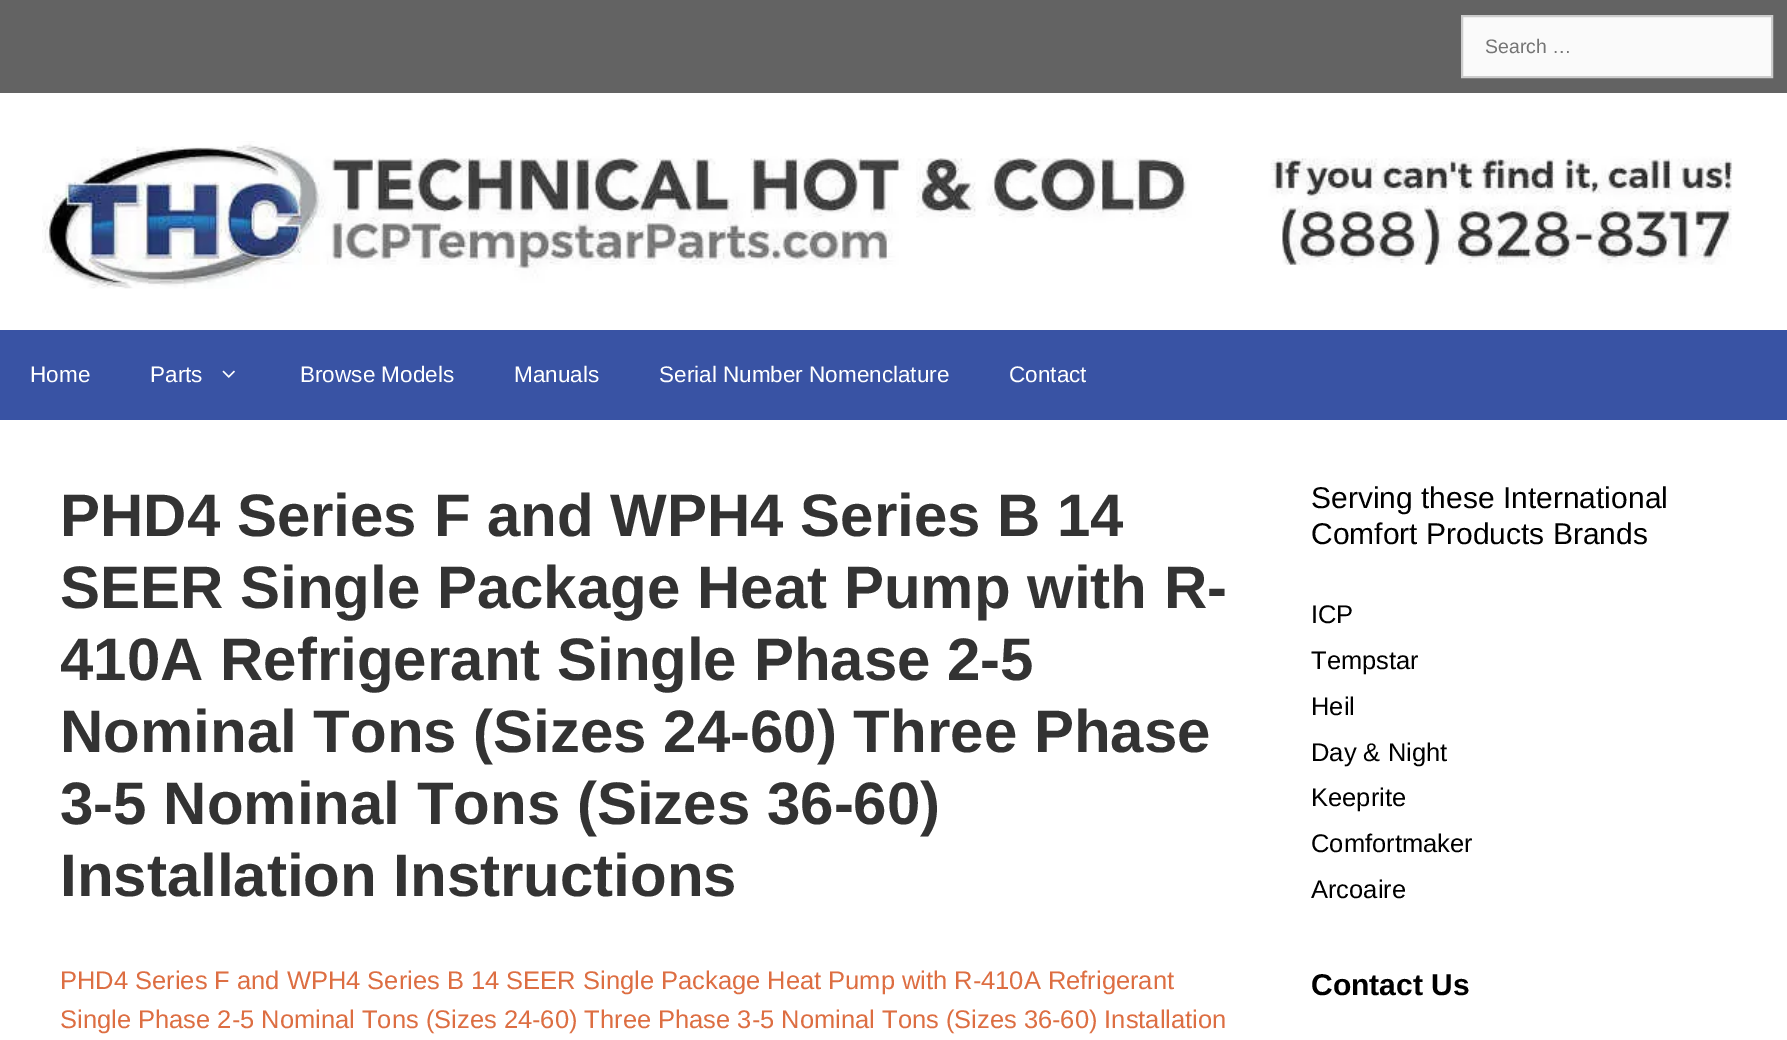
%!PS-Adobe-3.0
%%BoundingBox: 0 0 1787 1040
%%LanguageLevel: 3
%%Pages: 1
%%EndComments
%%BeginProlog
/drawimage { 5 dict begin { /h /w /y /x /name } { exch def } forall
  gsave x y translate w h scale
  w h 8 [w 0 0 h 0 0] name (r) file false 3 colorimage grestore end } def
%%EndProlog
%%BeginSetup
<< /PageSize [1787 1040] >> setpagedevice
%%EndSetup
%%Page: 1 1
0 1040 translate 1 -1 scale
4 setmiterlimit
0.388 setgray
0 0 1787 1040 rectfill
0.98 setgray
newpath 1462 16 moveto 1772 16 lineto 1772 77 lineto 1462 77 lineto closepath gsave fill grestore
0.8 setgray
2 setlinewidth
stroke
1 setgray
0 93 1787 237 rectfill
(images/1.raw) 42 141 1690 148 drawimage
0.224 0.325 0.643 setrgbcolor
0 330 1787 90 rectfill
(images/2.raw) 222 370 13 8 drawimage
1 setgray
0 420 1787 620 rectfill
/LiberationSans-Regular [19.5 0 0 -19.5 0 0] selectfont
0.459 setgray
1485 53 moveto (Search …) show
/LiberationSans-Regular [22.5 0 0 -22.5 0 0] selectfont
1 setgray
30 382 moveto (Home) show
150 382 moveto (Parts) show
300 382 moveto (Browse Models) show
514 382 moveto (Manuals) show
659 382 moveto (Serial Number Nomenclature) show
1009 382 moveto (Contact) show
/LiberationSans-Bold [60 0 0 -60 0 0] selectfont
0.2 setgray
60 536 moveto (PHD4 Series F and WPH4 Series B 14) show
60 608 moveto (SEER Single Package Heat Pump with R-) show
60 680 moveto (410A Refrigerant Single Phase 2-5) show
60 752 moveto (Nominal Tons \(Sizes 24-60\) Three Phase) show
60 824 moveto (3-5 Nominal Tons \(Sizes 36-60\)) show
60 896 moveto (Installation Instructions) show
/LiberationSans-Regular [25.5 0 0 -25.5 0 0] selectfont
0.867 0.431 0.259 setrgbcolor
60 989 moveto (PHD4 Series F and WPH4 Series B 14 SEER Single Package Heat Pump with R-410A Refrigerant) show
60 1028 moveto (Single Phase 2-5 Nominal Tons \(Sizes 24-60\) Three Phase 3-5 Nominal Tons \(Sizes 36-60\) Installation) show
/LiberationSans-Regular [30 0 0 -30 0 0] selectfont
0 setgray
1311 508 moveto (Serving these International) show
1311 544 moveto (Comfort Products Brands) show
/LiberationSans-Regular [25.5 0 0 -25.5 0 0] selectfont
1311 623 moveto (ICP) show
1311 669 moveto (Tempstar) show
1311 715 moveto (Heil) show
1311 761 moveto (Day & Night) show
1311 806 moveto (Keeprite) show
1311 852 moveto (Comfortmaker) show
1311 898 moveto (Arcoaire) show
/LiberationSans-Bold [30 0 0 -30 0 0] selectfont
1311 995 moveto (Contact Us) show
showpage
%%EOF
